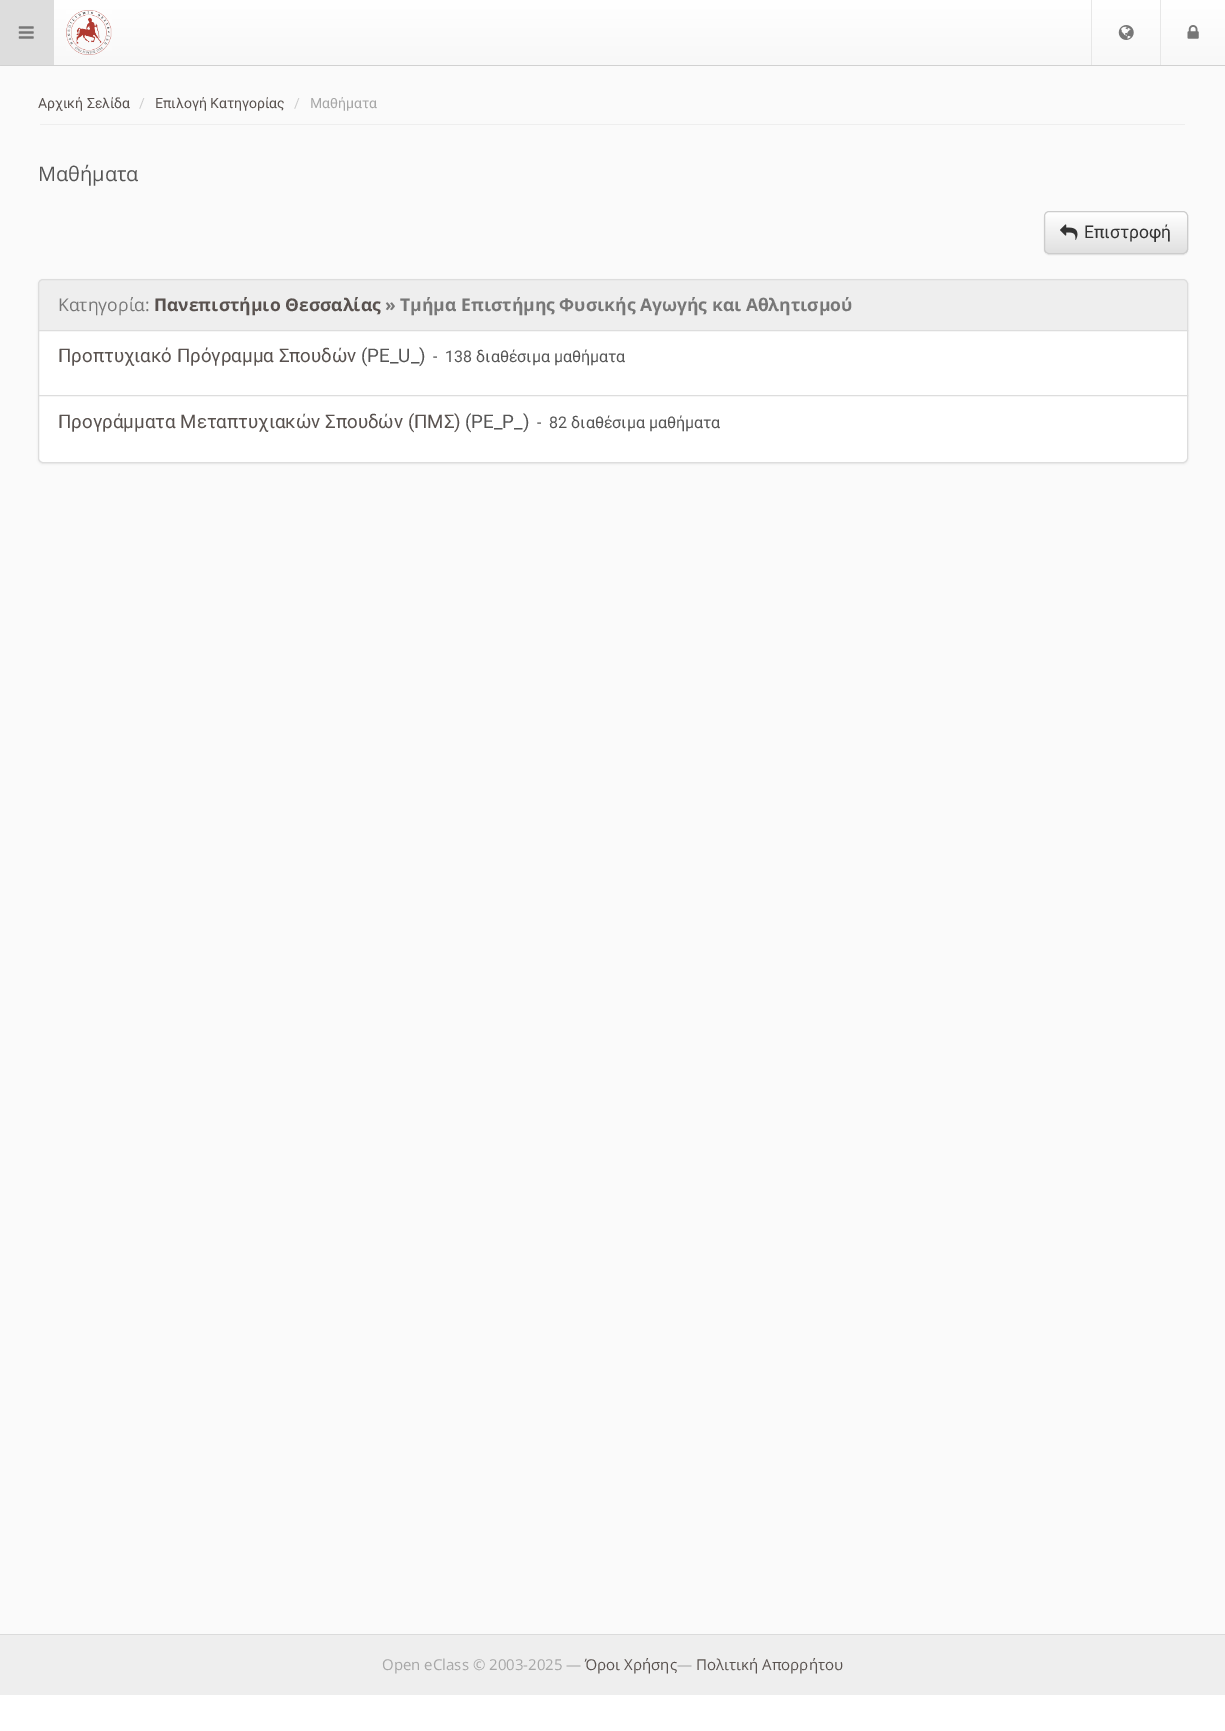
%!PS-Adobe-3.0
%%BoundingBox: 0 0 1225 1731
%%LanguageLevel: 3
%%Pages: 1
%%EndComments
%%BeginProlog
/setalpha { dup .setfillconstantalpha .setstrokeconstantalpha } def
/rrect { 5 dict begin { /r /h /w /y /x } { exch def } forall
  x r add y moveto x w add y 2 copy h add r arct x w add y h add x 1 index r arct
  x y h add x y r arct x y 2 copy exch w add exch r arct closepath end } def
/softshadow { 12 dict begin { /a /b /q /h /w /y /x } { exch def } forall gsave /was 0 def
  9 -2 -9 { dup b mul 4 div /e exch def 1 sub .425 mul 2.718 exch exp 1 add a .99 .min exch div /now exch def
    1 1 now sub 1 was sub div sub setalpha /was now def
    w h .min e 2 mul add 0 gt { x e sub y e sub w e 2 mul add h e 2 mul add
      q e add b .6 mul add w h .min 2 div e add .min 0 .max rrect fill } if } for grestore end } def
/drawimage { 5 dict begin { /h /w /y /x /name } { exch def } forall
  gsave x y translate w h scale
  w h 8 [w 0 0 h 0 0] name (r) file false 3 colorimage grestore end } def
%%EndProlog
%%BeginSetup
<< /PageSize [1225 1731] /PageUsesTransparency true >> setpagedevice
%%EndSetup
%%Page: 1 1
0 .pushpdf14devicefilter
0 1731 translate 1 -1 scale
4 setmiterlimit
1 setgray
0 0 1225 1731 rectfill
0.859 setgray
0 65 1225 1 rectfill
0 setgray
0 1 1225 65 0 3 0.07 softshadow
gsave newpath 54 0 moveto 1225 0 lineto 1225 65 lineto 54 65 lineto closepath clip newpath
<< /ShadingType 2 /ColorSpace /DeviceRGB /Coords [613 0 613 65] /Extend [true true] /Function << /FunctionType 2 /Domain [0 1] /C0 [1 1 1] /C1 [0.973 0.973 0.973] /N 1 >> >> shfill grestore
0.867 setgray
0 0 54 65 rectfill
(images/1.raw) 18 26 16 13 drawimage
(images/2.raw) 66 10 46 45 drawimage
0.906 setgray
1091 0 1 65 rectfill
(images/3.raw) 1118 25 16 15 drawimage
1160 0 1 65 rectfill
(images/4.raw) 1187 25 12 14 drawimage
0.98 setgray
0 66 1225 1568 rectfill
0.933 setgray
40 124 1145 1 rectfill
0 setgray
1044 213 144 42 5 0.5 0.07 softshadow
1 setgray
1044 211 144 43 5 rrect fill
gsave
1044 211 144 43 5 rrect clip newpath
gsave newpath 1044 213 moveto 1188 213 lineto 1188 253 lineto 1044 253 lineto closepath clip newpath
<< /ShadingType 2 /ColorSpace /DeviceRGB /Coords [1116 213 1116 253] /Extend [true true] /Function << /FunctionType 2 /Domain [0 1] /C0 [1 1 1] /C1 [0.878 0.878 0.878] /N 1 >> >> shfill grestore
grestore
0.8 setgray
1044.5 211.5 143 42 4.5 rrect stroke
(images/5.raw) 1060 224 18 16 drawimage
0 setgray
38 280 1150 184 5 1 0.07 softshadow
0.933 setgray
newpath 43 279.5 moveto 1183 279.5 lineto 1185.5 279.5 1187.5 281.5 1187.5 284 curveto 1187.5 330.5 lineto 38.5 330.5 lineto 38.5 284 lineto 38.5 281.5 40.5 279.5 43 279.5 curveto closepath gsave fill grestore
0.867 setgray
stroke
1 setgray
newpath 38.5 330.5 moveto 1187.5 330.5 lineto 1187.5 395.5 lineto 38.5 395.5 lineto closepath gsave fill grestore
0.867 setgray
stroke
1 setgray
newpath 38.5 395.5 moveto 1187.5 395.5 lineto 1187.5 458 lineto 1187.5 460.5 1185.5 462.5 1183 462.5 curveto 43 462.5 lineto 40.5 462.5 38.5 460.5 38.5 458 curveto closepath gsave fill grestore
0.867 setgray
stroke
0.933 setgray
0 1635 1225 60 rectfill
0.859 setgray
0 1634 1225 1 rectfill
/Roboto-Regular [14 0 0 -14 0 0] selectfont
0.349 0.322 0.31 setrgbcolor
38 108 moveto (Αρχική Σελίδα) show
0.8 setgray
139 108 moveto (/) show
0.349 0.322 0.31 setrgbcolor
155 108 moveto (Επιλογή Κατηγορίας) show
0.8 setgray
294 108 moveto (/) show
0.655 setgray
310 108 moveto (Μαθήματα) show
/OpenSans-Regular [20 0 0 -20 0 0] selectfont
0.333 setgray
38 181 moveto (Μαθήματα) show
/Roboto-Regular [17.5 0 0 -17.5 0 0] selectfont
0.2 setgray
1084 238 moveto (Επιστροφή) show
/OpenSans-Regular [17.5 0 0 -17.5 0 0] selectfont
0.467 setgray
58 311 moveto (Κατηγορία:) show
/OpenSans-Bold [17.5 0 0 -17.5 0 0] selectfont
0.349 0.322 0.31 setrgbcolor
154 311 moveto (Πανεπιστήμιο Θεσσαλίας) show
0.467 setgray
385 311 moveto (» Τμήμα Επιστήμης Φυσικής Αγωγής και Αθλητισμού) show
/Roboto-Regular [18.75 0 0 -18.75 0 0] selectfont
0.349 0.322 0.31 setrgbcolor
58 362 moveto (Προπτυχιακό Πρόγραμμα Σπουδών) show
0.333 setgray
361 362 moveto (\(PE_U_\)) show
/Roboto-Regular [16 0 0 -16 0 0] selectfont
433 362 moveto (-  138 διαθέσιμα μαθήματα) show
/Roboto-Regular [18.75 0 0 -18.75 0 0] selectfont
0.349 0.322 0.31 setrgbcolor
58 428 moveto (Προγράμματα Μεταπτυχιακών Σπουδών \(ΠΜΣ\)) show
0.333 setgray
465 428 moveto (\(PE_P_\)) show
/Roboto-Regular [16 0 0 -16 0 0] selectfont
537 428 moveto (-  82 διαθέσιμα μαθήματα) show
/OpenSans-Regular [15 0 0 -15 0 0] selectfont
0.655 setgray
382 1670 moveto (Open eClass © 2003-2025 —) show
0.349 0.322 0.31 setrgbcolor
585 1670 moveto (Όροι Χρήσης) show
0.655 setgray
677 1670 moveto (—) show
0.349 0.322 0.31 setrgbcolor
696 1670 moveto (Πολιτική Απορρήτου) show
.poppdf14devicefilter showpage
%%EOF
